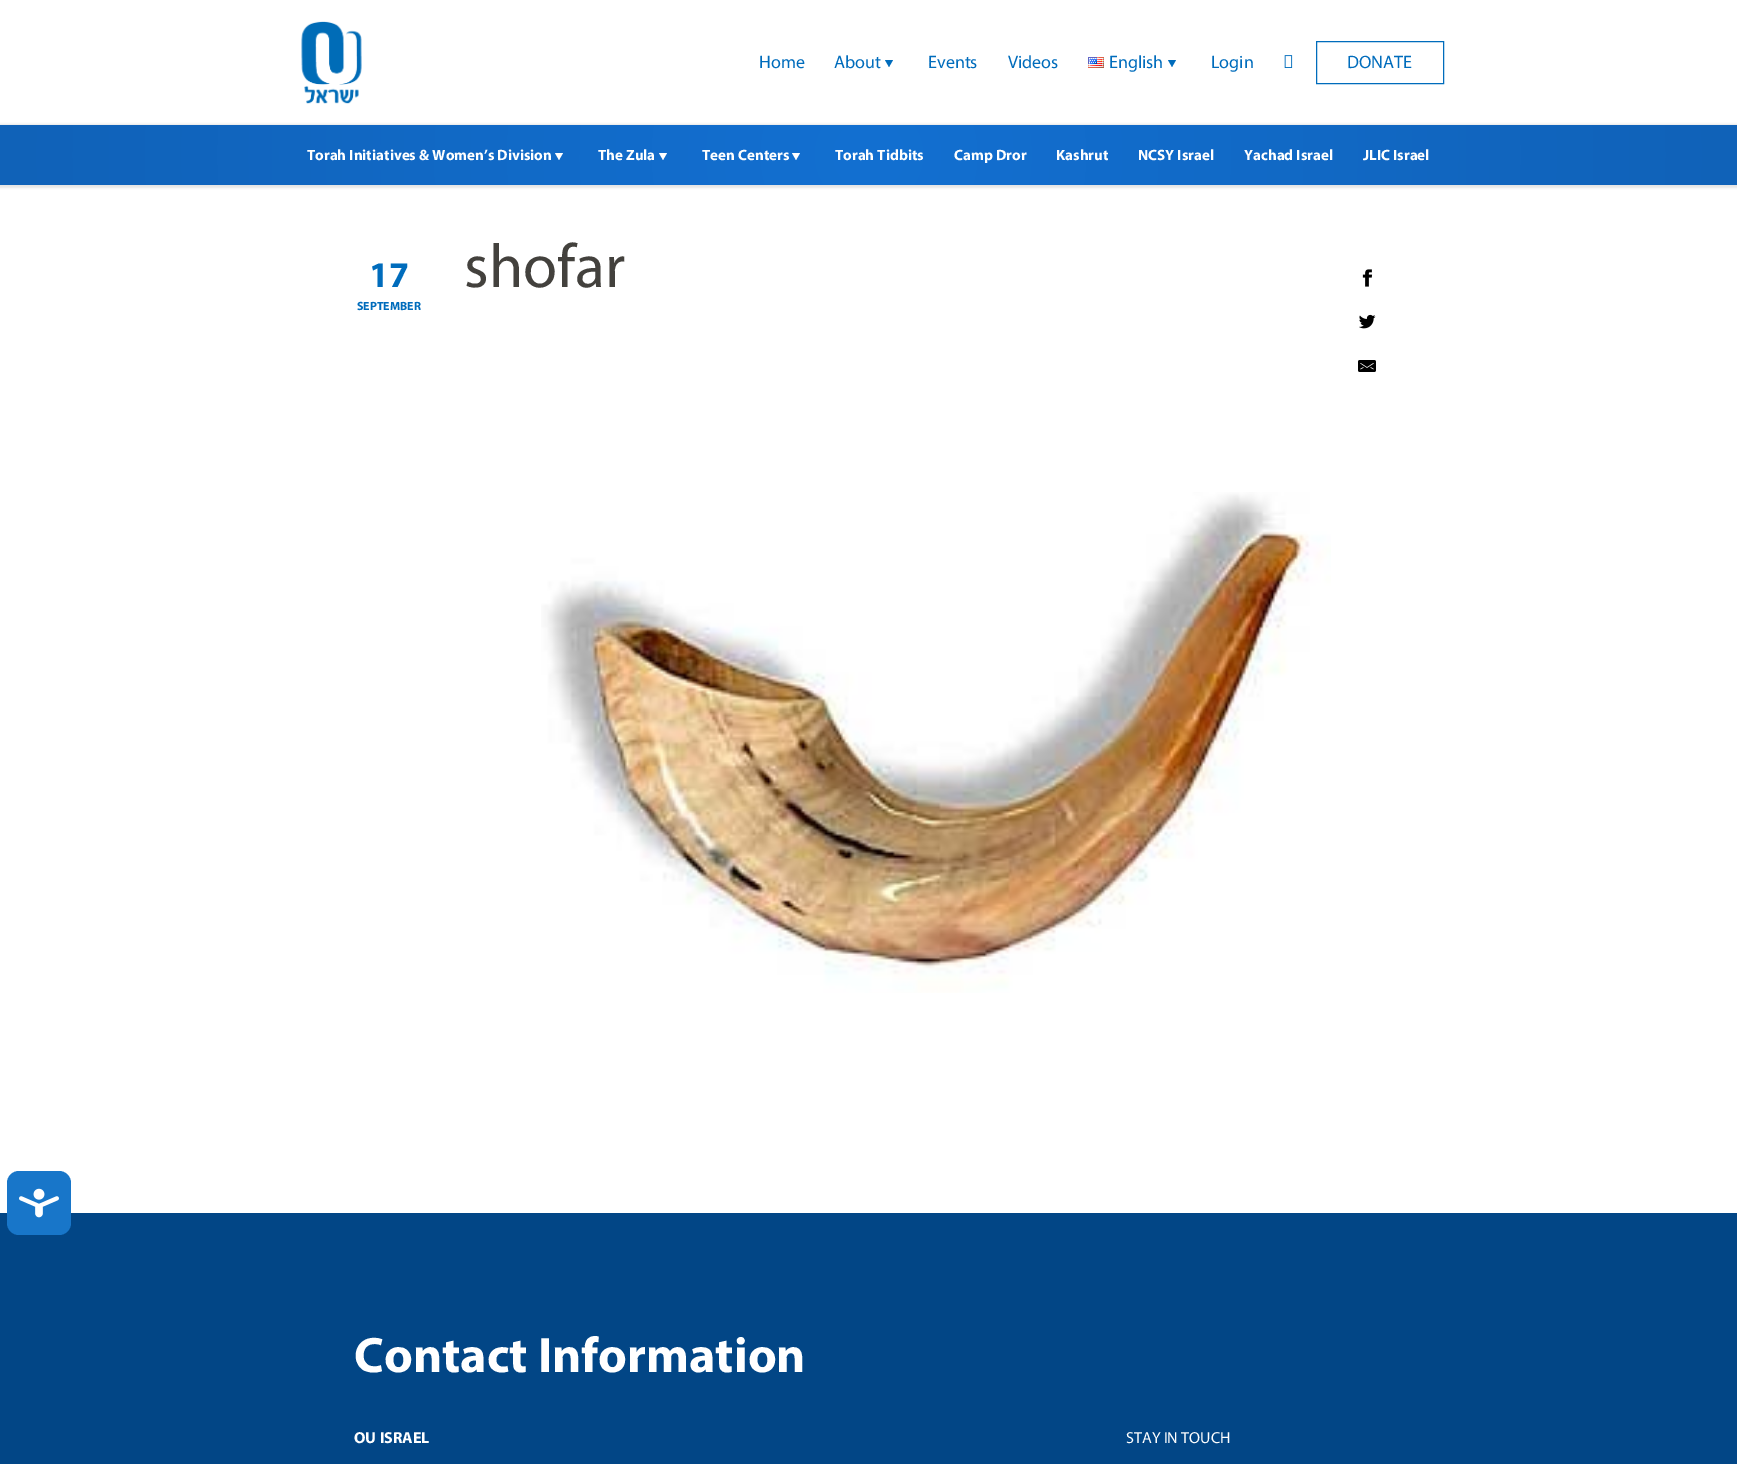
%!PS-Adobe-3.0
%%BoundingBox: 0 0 1737 1464
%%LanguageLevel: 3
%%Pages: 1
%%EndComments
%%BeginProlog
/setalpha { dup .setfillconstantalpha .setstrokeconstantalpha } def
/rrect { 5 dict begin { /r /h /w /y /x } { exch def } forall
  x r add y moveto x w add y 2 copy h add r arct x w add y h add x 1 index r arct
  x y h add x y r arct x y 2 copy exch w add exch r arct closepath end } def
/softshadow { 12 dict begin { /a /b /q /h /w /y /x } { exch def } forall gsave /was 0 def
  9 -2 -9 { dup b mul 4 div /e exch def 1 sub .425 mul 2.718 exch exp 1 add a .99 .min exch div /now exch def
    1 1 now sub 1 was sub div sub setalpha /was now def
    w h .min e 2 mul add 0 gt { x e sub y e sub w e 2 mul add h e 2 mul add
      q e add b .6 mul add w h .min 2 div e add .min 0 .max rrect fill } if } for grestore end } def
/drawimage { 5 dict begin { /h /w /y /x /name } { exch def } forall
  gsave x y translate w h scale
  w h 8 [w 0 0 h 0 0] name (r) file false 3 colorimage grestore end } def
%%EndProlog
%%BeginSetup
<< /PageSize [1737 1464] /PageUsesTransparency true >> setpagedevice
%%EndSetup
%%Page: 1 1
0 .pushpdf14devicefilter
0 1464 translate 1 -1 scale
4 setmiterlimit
1 setgray
0 0 1737 1464 rectfill
(images/1.raw) 301 21 61 83 drawimage
0 0.424 0.737 setrgbcolor
newpath 885 60 moveto 893 60 lineto 889 67 lineto closepath fill
(images/2.raw) 1088 57 16 11 drawimage
newpath 1168 60 moveto 1176 60 lineto 1172 67 lineto closepath fill
(images/3.raw) 1284 55 9 13 drawimage
1316.5 41.5 127 42 rectstroke
0 setgray
-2 124 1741 64 0 1 0.1 softshadow
gsave newpath 0 125 moveto 1737 125 lineto 1737 185 lineto 0 185 lineto closepath clip newpath 869 155 translate 869 869 scale
<< /ShadingType 3 /ColorSpace /DeviceRGB /Coords [0 0 0 0 0 1] /Extend [true true] /Function << /FunctionType 2 /Domain [0 1] /C0 [0.071 0.439 0.82] /C1 [0.063 0.384 0.722] /N 1 >> >> shfill grestore
1 setgray
newpath 555 153 moveto 563 153 lineto 559 160 lineto closepath fill
newpath 659 153 moveto 667 153 lineto 663 160 lineto closepath fill
newpath 792 153 moveto 800 153 lineto 796 160 lineto closepath fill
(images/4.raw) 1362 269 11 18 drawimage
(images/5.raw) 1359 314 17 15 drawimage
(images/6.raw) 1358 360 18 12 drawimage
(images/7.raw) 541 492 790 501 drawimage
0.008 0.275 0.525 setrgbcolor
0 1213 1737 251 rectfill
0.094 0.463 0.788 setrgbcolor
7 1171 64 64 12 rrect fill
(images/8.raw) 19 1188 40 30 drawimage
/Myriad-Regular [18 0 0 -18 0 0] selectfont
0 0.424 0.737 setrgbcolor
759 68 moveto (Home) show
834 68 moveto (About) show
928 68 moveto (Events) show
1008 68 moveto (Videos) show
1109 68 moveto (English) show
1211 68 moveto (Login) show
1347 68 moveto (DONATE) show
/Myriad-Bold [15 0 0 -15 0 0] selectfont
1 setgray
307 160 moveto (Torah Initiatives & Women’s Division) show
598 160 moveto (The Zula) show
702 160 moveto (Teen Centers) show
835 160 moveto (Torah Tidbits) show
954 160 moveto (Camp Dror) show
1056 160 moveto (Kashrut) show
1138 160 moveto (NCSY Israel) show
1244 160 moveto (Yachad Israel) show
1363 160 moveto (JLIC Israel) show
/Myriad-Bold [36 0 0 -36 0 0] selectfont
0 0.424 0.737 setrgbcolor
369 287 moveto (17) show
/Myriad-Bold [12 0 0 -12 0 0] selectfont
357 310 moveto (SEPTEMBER) show
/Myriad-Regular [62 0 0 -62 0 0] selectfont
0.263 0.255 0.239 setrgbcolor
464 287 moveto (shofar) show
/Myriad-Bold [50 0 0 -50 0 0] selectfont
1 setgray
354 1372 moveto (Contact Information) show
/Myriad-Bold [16 0 0 -16 0 0] selectfont
354 1443 moveto (OU ISRAEL) show
/Myriad-Regular [16 0 0 -16 0 0] selectfont
1126 1443 moveto (STAY IN TOUCH) show
.poppdf14devicefilter showpage
%%EOF
